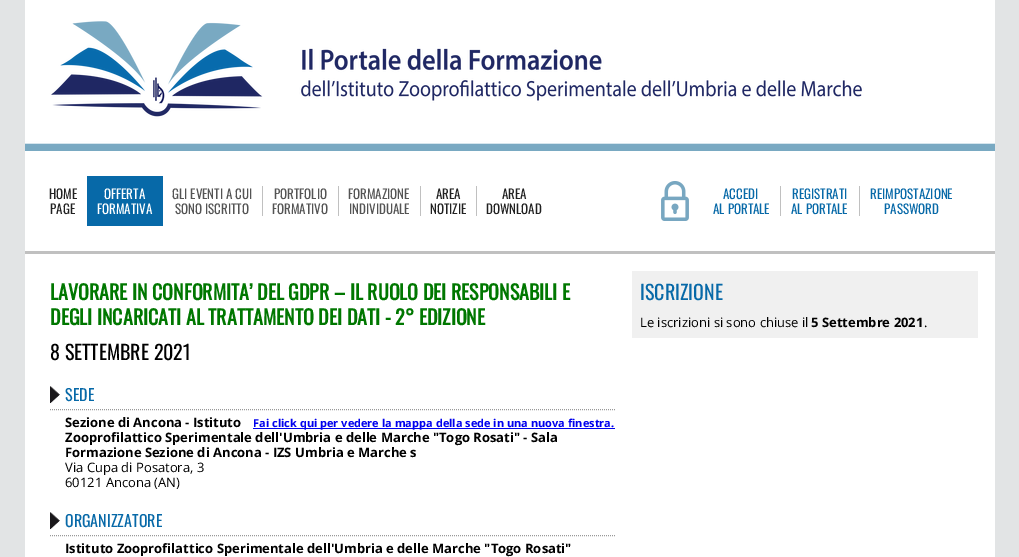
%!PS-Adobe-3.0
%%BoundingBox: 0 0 1019 557
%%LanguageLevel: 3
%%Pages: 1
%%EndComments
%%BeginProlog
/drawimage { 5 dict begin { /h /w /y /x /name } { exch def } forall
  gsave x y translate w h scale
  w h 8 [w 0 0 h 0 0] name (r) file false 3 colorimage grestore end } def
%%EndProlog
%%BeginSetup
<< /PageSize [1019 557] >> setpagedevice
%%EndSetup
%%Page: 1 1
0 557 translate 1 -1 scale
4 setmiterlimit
0.886 0.894 0.898 setrgbcolor
0 0 1019 557 rectfill
1 setgray
25 0 970 557 rectfill
(images/1.raw) 25 21 970 130 drawimage
0.753 setgray
25 251 970 3 rectfill
0.027 0.412 0.659 setrgbcolor
87 176 76 50 rectfill
0.753 setgray
262 186 1 30 rectfill
338 186 1 30 rectfill
420 186 1 30 rectfill
476 186 1 30 rectfill
(images/2.raw) 661 181 28 40 drawimage
780 186 1 30 rectfill
859 186 1 30 rectfill
(images/3.raw) 50 386 10 18 drawimage
0.6 setgray
[1 1] 0 setdash
newpath 50 409.5 moveto 615 409.5 lineto stroke
0 0 0.933 setrgbcolor
253 428 362 1 rectfill
(images/3.raw) 50 512 10 18 drawimage
0.6 setgray
newpath 50 535.5 moveto 615 535.5 lineto stroke
0.941 setgray
632 271 346 67 rectfill
/Oswald-Regular [13 0 0 -13 0 0] selectfont
0.129 setgray
49 199 moveto (HOME) show
50 214 moveto (PAGE) show
1 setgray
104 199 moveto (OFFERTA) show
97 214 moveto (FORMATIVA) show
0.329 setgray
172 199 moveto (GLI EVENTI A CUI) show
175 214 moveto (SONO ISCRITTO) show
274 199 moveto (PORTFOLIO) show
272 214 moveto (FORMATIVO) show
348 199 moveto (FORMAZIONE) show
349 214 moveto (INDIVIDUALE) show
0.129 setgray
436 199 moveto (AREA) show
430 214 moveto (NOTIZIE) show
502 199 moveto (AREA) show
486 214 moveto (DOWNLOAD) show
0.027 0.412 0.659 setrgbcolor
723 199 moveto (ACCEDI) show
713 214 moveto (AL PORTALE) show
792 199 moveto (REGISTRATI) show
791 214 moveto (AL PORTALE) show
870 199 moveto (REIMPOSTAZIONE) show
884 214 moveto (PASSWORD) show
/Oswald-Bold [20 0 0 -20 0 0] selectfont
0 0.467 0 setrgbcolor
50 300 moveto (LAVORARE IN CONFORMITA’ DEL GDPR – IL RUOLO DEI RESPONSABILI E) show
50 325 moveto (DEGLI INCARICATI AL TRATTAMENTO DEI DATI - 2° EDIZIONE) show
/Oswald-Regular [20 0 0 -20 0 0] selectfont
0 setgray
50 360 moveto (8 SETTEMBRE 2021) show
/Oswald-Regular [16 0 0 -16 0 0] selectfont
0.027 0.412 0.659 setrgbcolor
65 401 moveto (SEDE) show
/OpenSans-Bold [13 0 0 -13 0 0] selectfont
0 setgray
65 427 moveto (Sezione di Ancona - Istituto) show
/OpenSans-Bold [11 0 0 -11 0 0] selectfont
0 0 0.933 setrgbcolor
253 427 moveto (Fai click qui per vedere la mappa della sede in una nuova finestra.) show
/OpenSans-Bold [13 0 0 -13 0 0] selectfont
0 setgray
65 442 moveto (Zooprofilattico Sperimentale dell'Umbria e delle Marche "Togo Rosati" - Sala) show
65 457 moveto (Formazione Sezione di Ancona - IZS Umbria e Marche s) show
/OpenSans-Regular [13 0 0 -13 0 0] selectfont
65 472 moveto (Via Cupa di Posatora, 3) show
65 487 moveto (60121 Ancona \(AN\)) show
/Oswald-Regular [16 0 0 -16 0 0] selectfont
0.027 0.412 0.659 setrgbcolor
65 527 moveto (ORGANIZZATORE) show
/OpenSans-Bold [13 0 0 -13 0 0] selectfont
0 setgray
65 553 moveto (Istituto Zooprofilattico Sperimentale dell'Umbria e delle Marche "Togo Rosati") show
/Oswald-Regular [20 0 0 -20 0 0] selectfont
0.027 0.412 0.659 setrgbcolor
640 300 moveto (ISCRIZIONE) show
/OpenSans-Regular [13 0 0 -13 0 0] selectfont
0 setgray
640 327 moveto (Le iscrizioni si sono chiuse il) show
/OpenSans-Bold [13 0 0 -13 0 0] selectfont
811 327 moveto (5 Settembre 2021) show
/OpenSans-Regular [13 0 0 -13 0 0] selectfont
924 327 moveto (.) show
showpage
%%EOF
